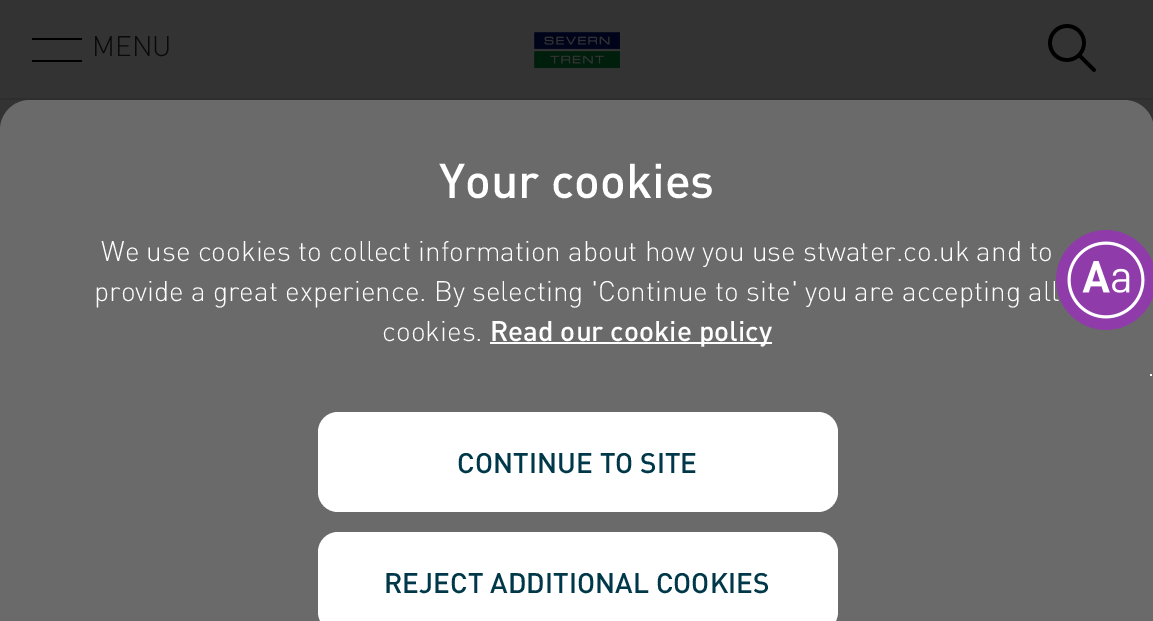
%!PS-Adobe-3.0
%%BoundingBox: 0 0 1153 621
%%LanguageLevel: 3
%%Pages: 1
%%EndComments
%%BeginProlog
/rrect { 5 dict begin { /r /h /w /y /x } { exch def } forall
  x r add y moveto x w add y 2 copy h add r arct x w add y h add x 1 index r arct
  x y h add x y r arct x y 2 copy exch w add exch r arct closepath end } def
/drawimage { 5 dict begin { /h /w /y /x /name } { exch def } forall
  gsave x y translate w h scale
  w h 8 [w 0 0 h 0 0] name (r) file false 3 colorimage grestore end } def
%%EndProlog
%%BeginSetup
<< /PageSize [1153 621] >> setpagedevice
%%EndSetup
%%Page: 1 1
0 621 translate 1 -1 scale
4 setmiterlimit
0.2 setgray
0 0 1153 621 rectfill
0.18 setgray
0 98 1153 2 rectfill
0 setgray
32 38 50 2 rectfill
32 60 50 2 rectfill
(images/1.raw) 534 32 86 37 drawimage
(images/2.raw) 1048 24 48 48 drawimage
0.416 setgray
0 100 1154 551 30 rrect fill
1 setgray
490 342 282 2 rectfill
318 412 520 100 20 rrect fill
318 532 520 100 20 rrect fill
newpath 1151 375 1 0 360 arc closepath fill
/Din-Regular [28 0 0 -28 0 0] selectfont
0.039 setgray
92 56 moveto (MENU) show
/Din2-Regular [48 0 0 -48 0 0] selectfont
1 setgray
439 198 moveto (Your cookies) show
/Din-Regular [28 0 0 -28 0 0] selectfont
101 261 moveto (We use cookies to collect information about how you use stwater.co.uk and to) show
94 301 moveto (provide a great experience. By selecting 'Continue to site' you are accepting all) show
382 341 moveto (cookies.) show
/Din2-Regular [28 0 0 -28 0 0] selectfont
490 341 moveto (Read our cookie policy) show
0 0.22 0.29 setrgbcolor
457 473 moveto (CONTINUE TO SITE) show
384 593 moveto (REJECT ADDITIONAL COOKIES) show
(images/3.raw) 1056 230 97 100 drawimage
showpage
%%EOF
